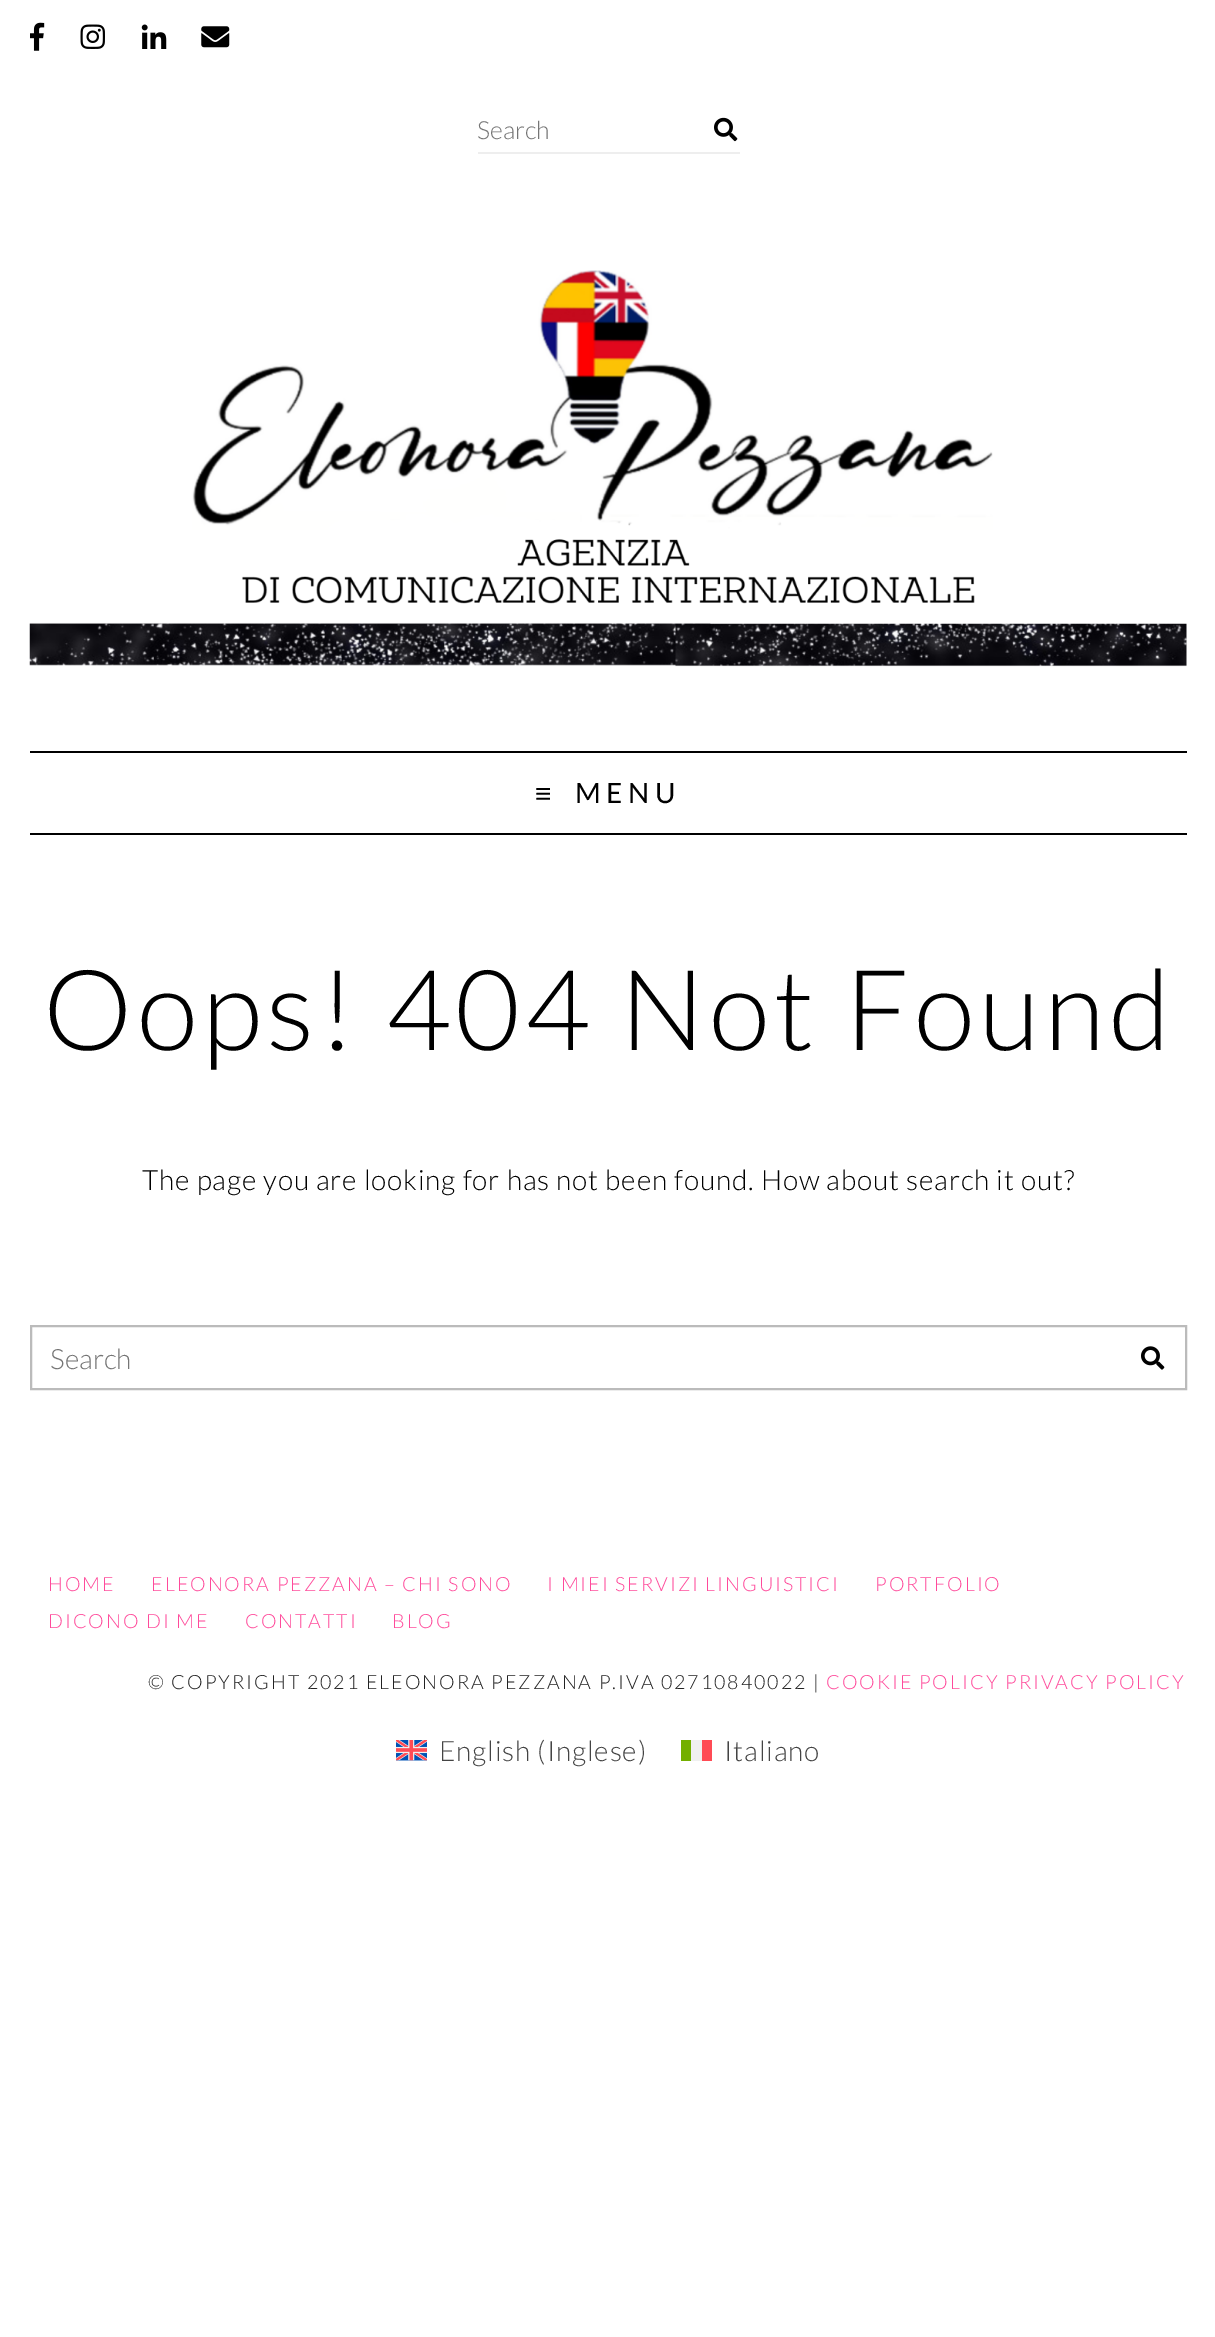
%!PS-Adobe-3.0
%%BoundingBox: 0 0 1215 2337
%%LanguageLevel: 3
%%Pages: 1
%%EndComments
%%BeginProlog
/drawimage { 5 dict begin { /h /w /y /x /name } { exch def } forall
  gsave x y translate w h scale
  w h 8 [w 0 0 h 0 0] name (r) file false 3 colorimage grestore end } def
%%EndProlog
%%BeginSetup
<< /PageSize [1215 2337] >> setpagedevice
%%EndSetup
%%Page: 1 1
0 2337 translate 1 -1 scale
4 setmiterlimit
1 setgray
0 0 1215 2337 rectfill
(images/1.raw) 30 22 15 29 drawimage
(images/2.raw) 80 24 25 25 drawimage
(images/3.raw) 141 24 26 25 drawimage
(images/4.raw) 201 26 29 22 drawimage
0.933 setgray
478 152 262 2 rectfill
(images/5.raw) 714 117 24 25 drawimage
(images/6.raw) 29 270 1158 397 drawimage
0 setgray
30 751 1157 2 rectfill
30 833 1157 2 rectfill
0.733 setgray
2 setlinewidth
31 1326 1155 63 rectstroke
(images/7.raw) 1141 1346 24 24 drawimage
(images/8.raw) 396 1740 31 21 drawimage
0.451 0.686 0 setrgbcolor
681 1740 10 21 rectfill
0.941 setgray
691 1740 11 21 rectfill
1 0.294 0.333 setrgbcolor
702 1740 10 21 rectfill
/Lato-Light [25 0 0 -25 0 0] selectfont
0.459 setgray
477 139 moveto (Search) show
/LiberationSans-Regular [28 0 0 -28 0 0] selectfont
0 setgray
535 803 moveto 5.5 0 (≡) ashow
/Lato-Regular [28 0 0 -28 0 0] selectfont
575 803 moveto 5.5 0 (MENU) ashow
/Lato-Light [112 0 0 -112 0 0] selectfont
43 1050 moveto 4.5 0 (Oops! 404 Not Found) ashow
/Lato-Light [28 0 0 -28 0 0] selectfont
142 1190 moveto 0.85 0 (The page you are looking for has not been found. How about search it out?) ashow
0.459 setgray
50 1369 moveto (Search) show
/Lato-Light [19.6 0 0 -19.6 0 0] selectfont
1 0.29 0.608 setrgbcolor
48 1591 moveto 1.95 0 (HOME) ashow
151 1591 moveto 1.95 0 (ELEONORA PEZZANA – CHI SONO) ashow
547 1591 moveto 1.95 0 (I MIEI SERVIZI LINGUISTICI) ashow
875 1591 moveto 1.95 0 (PORTFOLIO) ashow
48 1628 moveto 1.95 0 (DICONO DI ME) ashow
245 1628 moveto 1.95 0 (CONTATTI) ashow
392 1628 moveto 1.95 0 (BLOG) ashow
0.133 setgray
148 1689 moveto 1.95 0 (© COPYRIGHT 2021 ELEONORA PEZZANA P.IVA 02710840022 |) ashow
1 0.29 0.608 setrgbcolor
826 1689 moveto 1.95 0 (COOKIE POLICY PRIVACY POLICY) ashow
/Lato-Light [28 0 0 -28 0 0] selectfont
0.267 setgray
439 1761 moveto 0.85 0 (English \(Inglese\)) ashow
724 1761 moveto 0.85 0 (Italiano) ashow
showpage
%%EOF
